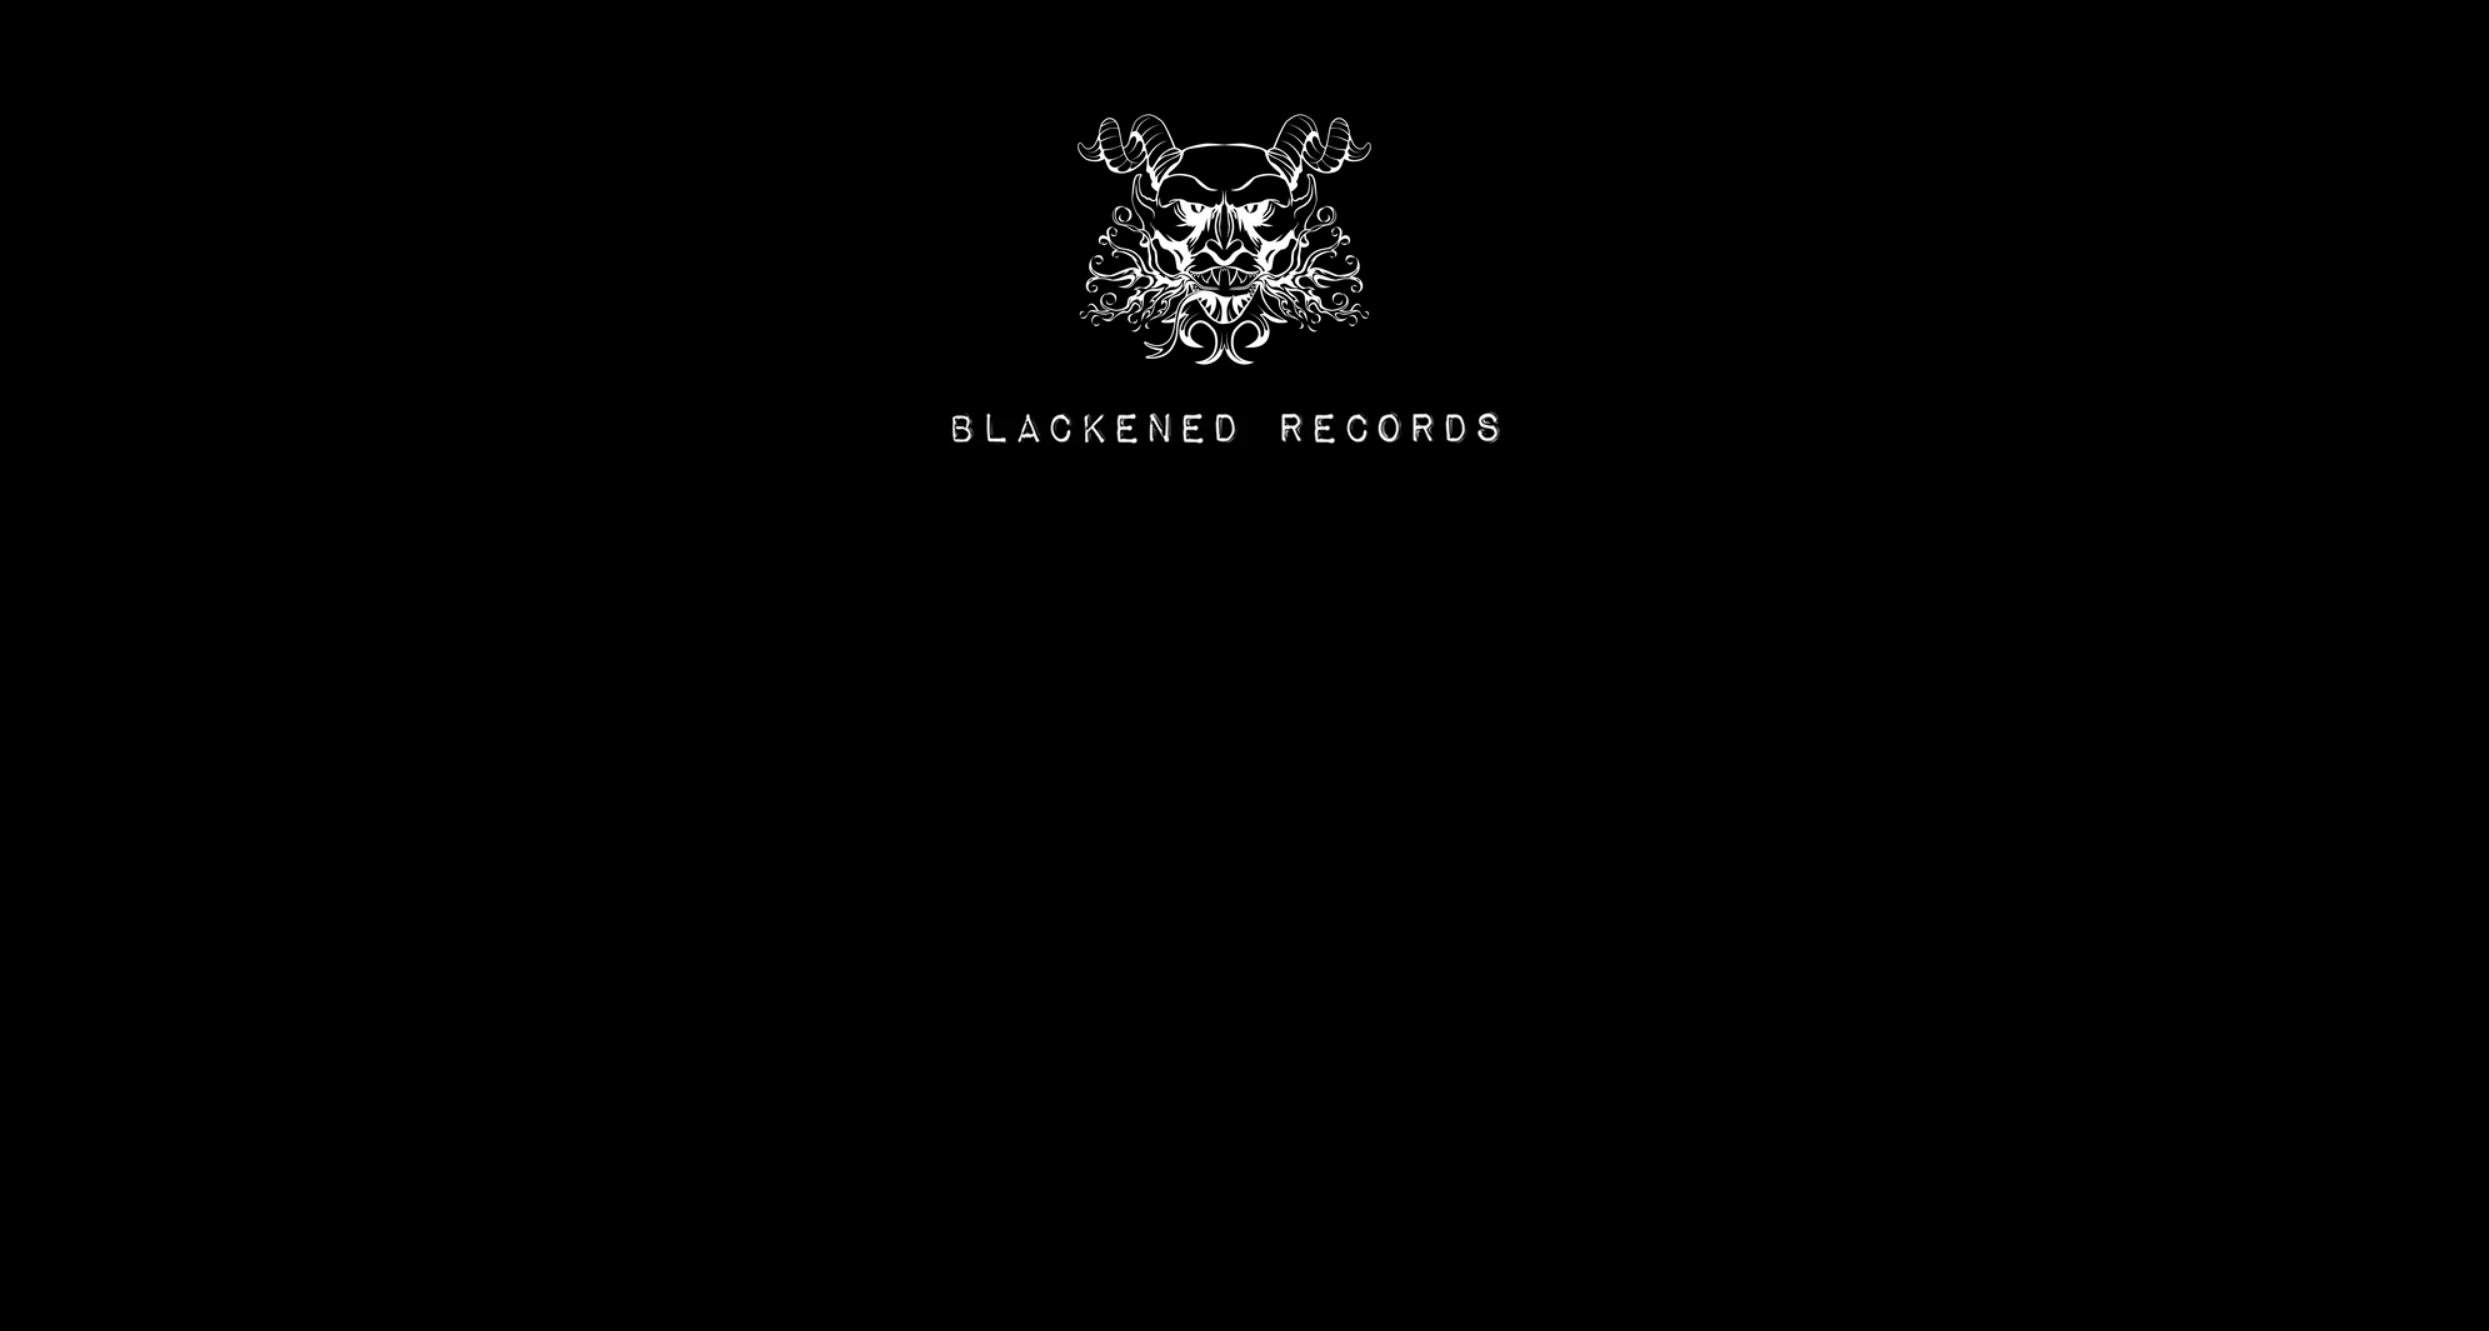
%!PS-Adobe-3.0
%%BoundingBox: 0 0 2489 1331
%%LanguageLevel: 3
%%Pages: 1
%%EndComments
%%BeginProlog
/drawimage { 5 dict begin { /h /w /y /x /name } { exch def } forall
  gsave x y translate w h scale
  w h 8 [w 0 0 h 0 0] name (r) file false 3 colorimage grestore end } def
%%EndProlog
%%BeginSetup
<< /PageSize [2489 1331] >> setpagedevice
%%EndSetup
%%Page: 1 1
0 1331 translate 1 -1 scale
4 setmiterlimit
0 setgray
0 0 2489 1331 rectfill
(images/1.raw) 1077 113 295 253 drawimage
(images/2.raw) 950 409 551 36 drawimage
showpage
%%EOF
